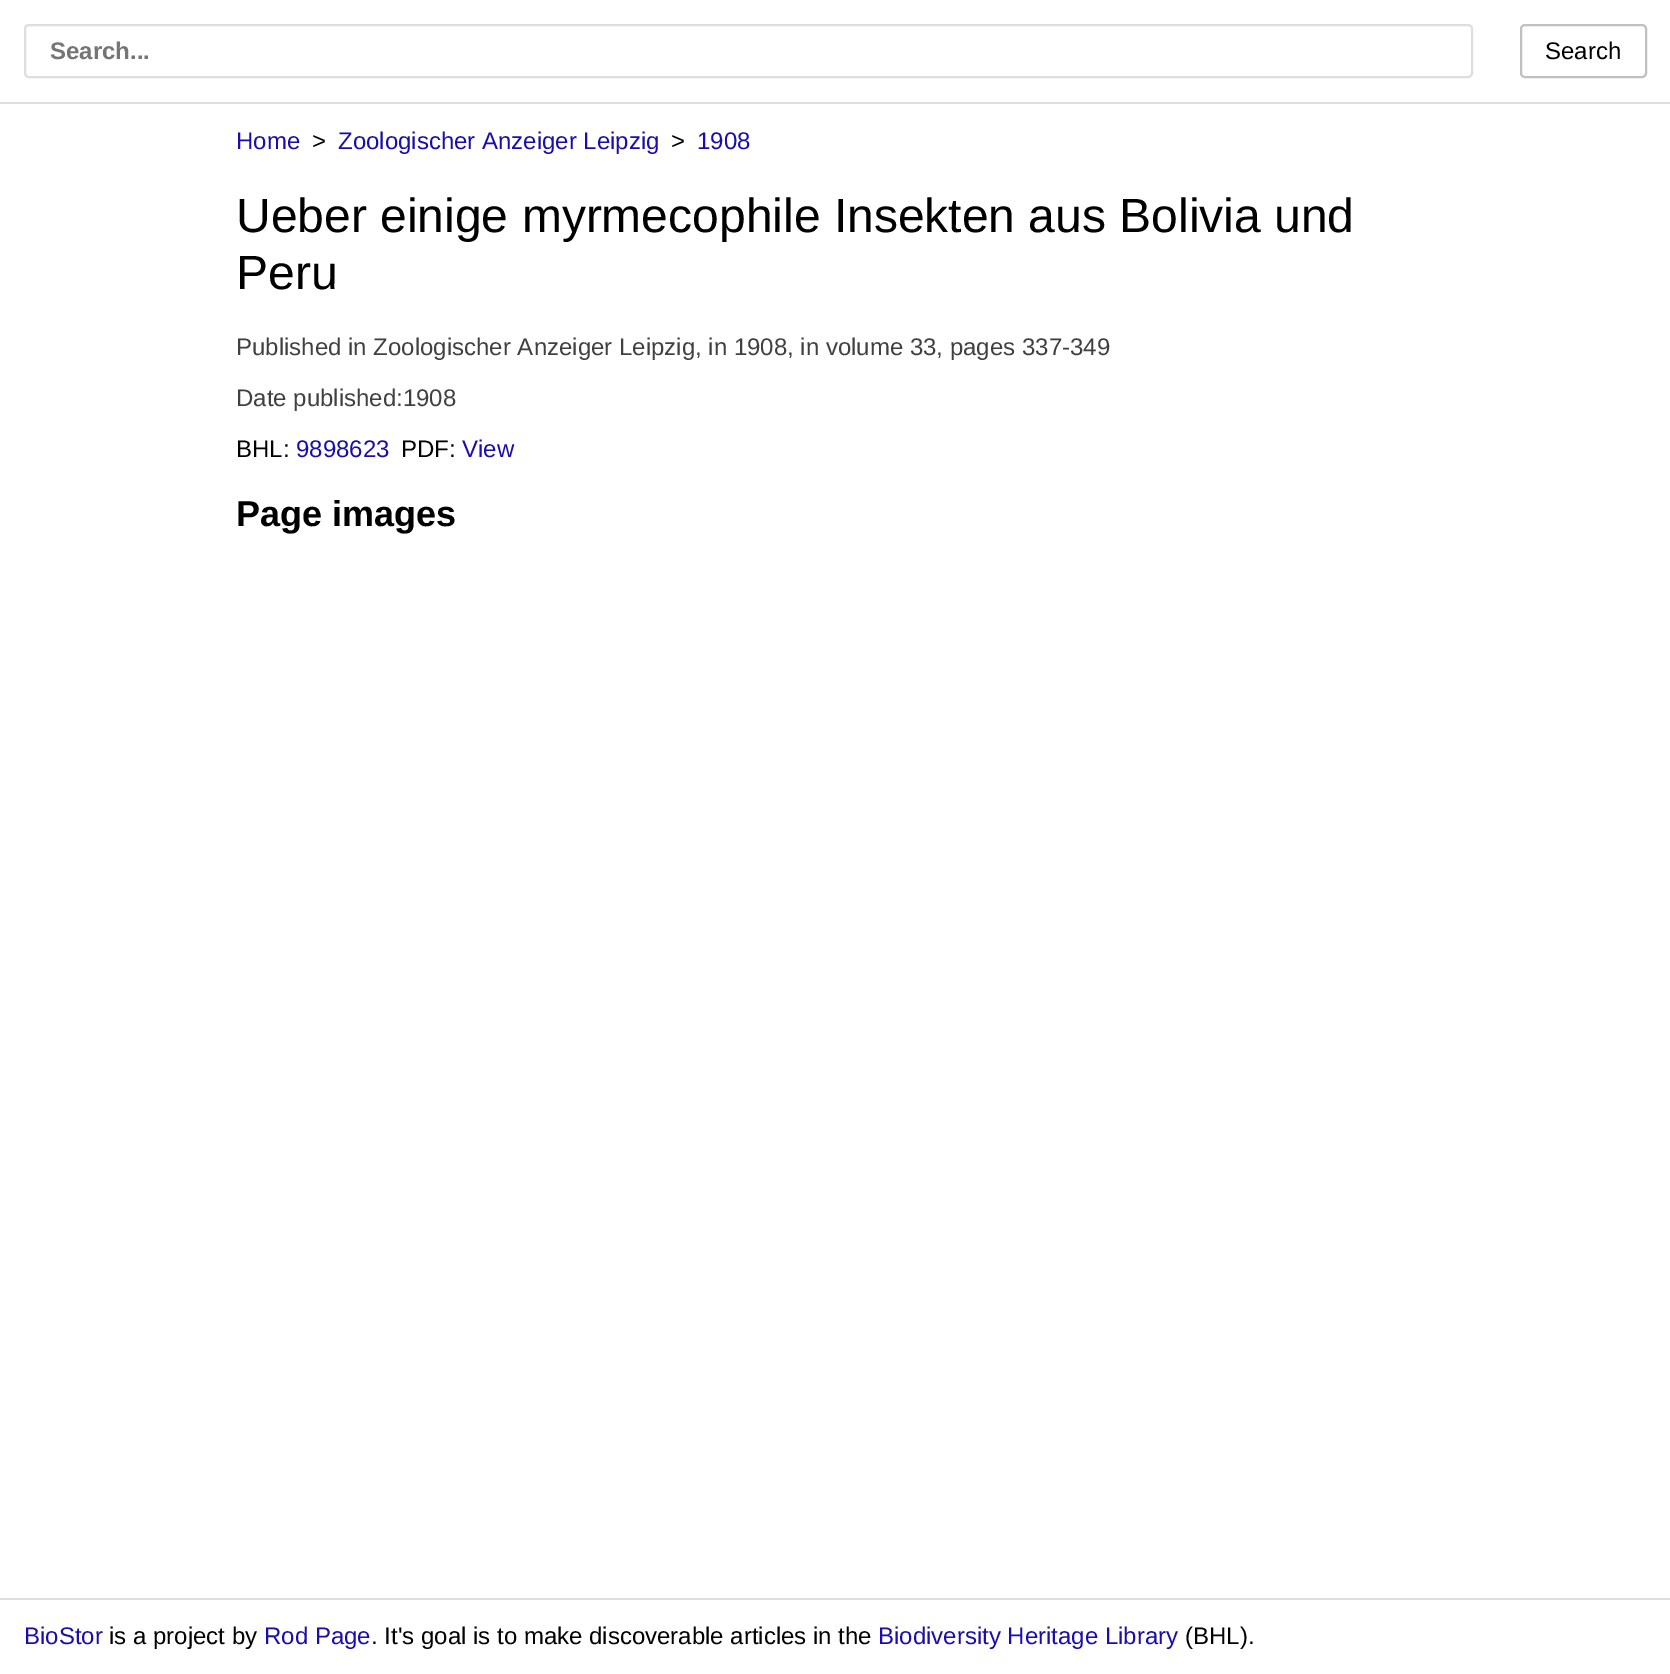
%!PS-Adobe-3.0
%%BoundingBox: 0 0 1670 1674
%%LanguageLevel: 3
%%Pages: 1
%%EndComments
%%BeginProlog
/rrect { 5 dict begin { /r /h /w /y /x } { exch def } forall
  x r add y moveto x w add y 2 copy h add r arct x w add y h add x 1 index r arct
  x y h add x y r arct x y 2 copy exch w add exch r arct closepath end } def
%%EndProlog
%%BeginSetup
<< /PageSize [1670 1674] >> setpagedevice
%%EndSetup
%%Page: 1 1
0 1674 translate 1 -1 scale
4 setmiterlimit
1 setgray
0 0 1670 1674 rectfill
0.871 setgray
0 102 1670 2 rectfill
2 setlinewidth
25 25 1447 52 4 rrect stroke
0.753 setgray
1521 25 125 52 4 rrect stroke
0.871 setgray
0 1598 1670 2 rectfill
/LiberationSans-Bold [24 0 0 -24 0 0] selectfont
0.459 setgray
50 59 moveto (Search...) show
/LiberationSans-Regular [24 0 0 -24 0 0] selectfont
0 setgray
1545 59 moveto (Search) show
0.102 0.051 0.671 setrgbcolor
236 149 moveto (Home) show
0 setgray
312 149 moveto (>) show
0.102 0.051 0.671 setrgbcolor
338 149 moveto (Zoologischer Anzeiger Leipzig) show
0 setgray
671 149 moveto (>) show
0.102 0.051 0.671 setrgbcolor
697 149 moveto (1908) show
/LiberationSans-Regular [48 0 0 -48 0 0] selectfont
0 setgray
236 232 moveto (Ueber einige myrmecophile Insekten aus Bolivia und) show
236 289 moveto (Peru) show
/LiberationSans-Regular [24 0 0 -24 0 0] selectfont
0.251 setgray
236 355 moveto (Published in Zoologischer Anzeiger Leipzig, in 1908, in volume 33, pages 337-349) show
236 406 moveto (Date published:1908) show
0 setgray
236 457 moveto (BHL:) show
0.102 0.051 0.671 setrgbcolor
296 457 moveto (9898623) show
0 setgray
401 457 moveto (PDF:) show
0.102 0.051 0.671 setrgbcolor
462 457 moveto (View) show
/LiberationSans-Bold [36 0 0 -36 0 0] selectfont
0 setgray
236 526 moveto (Page images) show
/LiberationSans-Regular [24 0 0 -24 0 0] selectfont
0.102 0.051 0.671 setrgbcolor
24 1644 moveto (BioStor) show
0 setgray
109 1644 moveto (is a project by) show
0.102 0.051 0.671 setrgbcolor
264 1644 moveto (Rod Page) show
0 setgray
371 1644 moveto (. It's goal is to make discoverable articles in the) show
0.102 0.051 0.671 setrgbcolor
878 1644 moveto (Biodiversity Heritage Library) show
0 setgray
1185 1644 moveto (\(BHL\).) show
showpage
%%EOF
